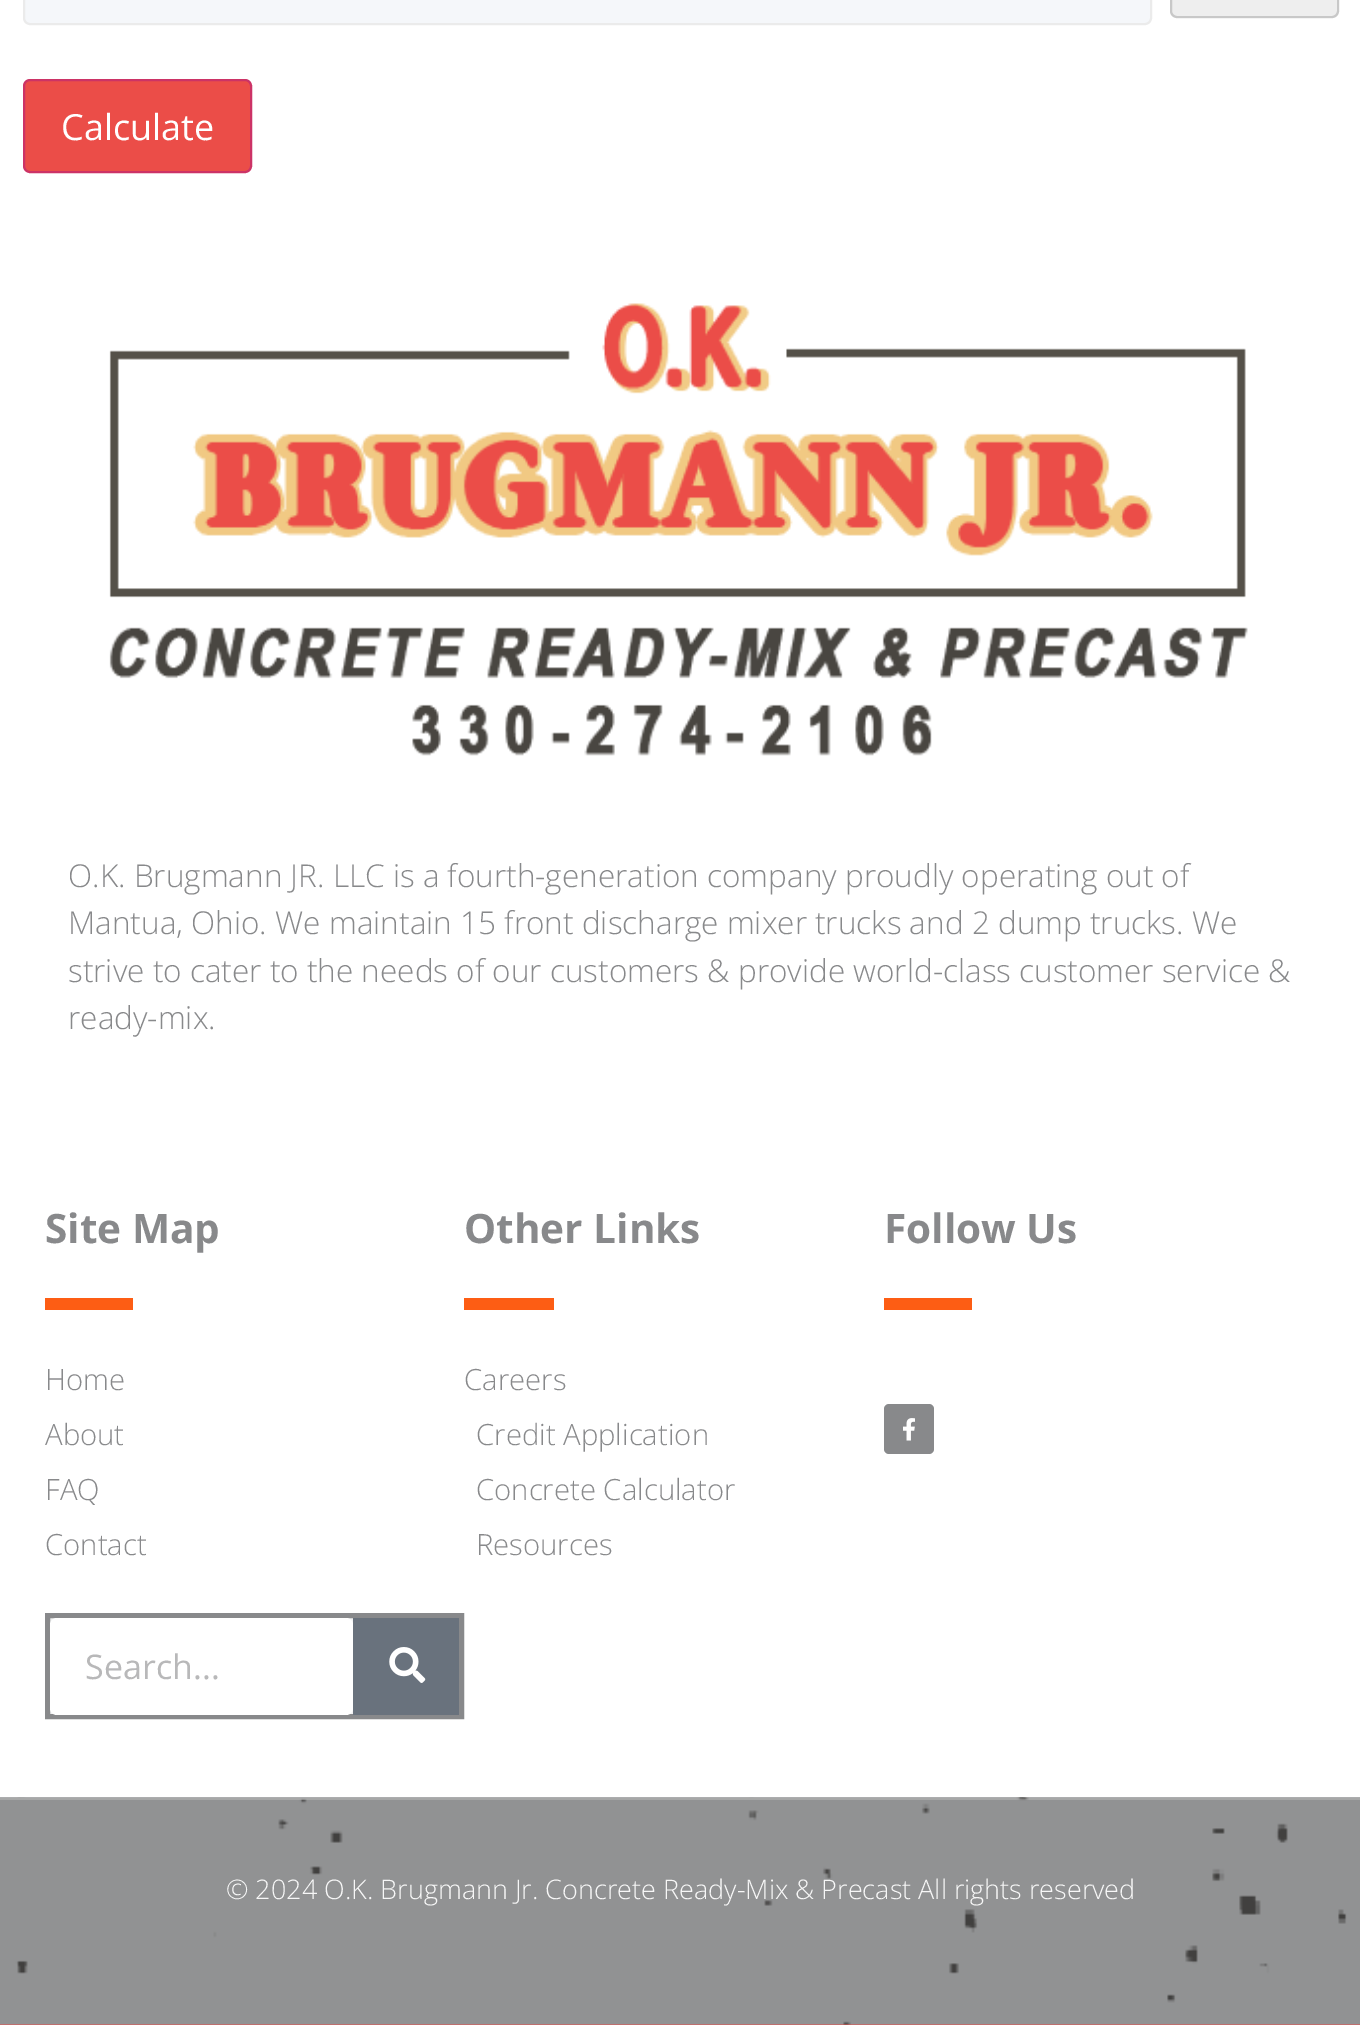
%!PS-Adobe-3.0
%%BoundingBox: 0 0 1360 2025
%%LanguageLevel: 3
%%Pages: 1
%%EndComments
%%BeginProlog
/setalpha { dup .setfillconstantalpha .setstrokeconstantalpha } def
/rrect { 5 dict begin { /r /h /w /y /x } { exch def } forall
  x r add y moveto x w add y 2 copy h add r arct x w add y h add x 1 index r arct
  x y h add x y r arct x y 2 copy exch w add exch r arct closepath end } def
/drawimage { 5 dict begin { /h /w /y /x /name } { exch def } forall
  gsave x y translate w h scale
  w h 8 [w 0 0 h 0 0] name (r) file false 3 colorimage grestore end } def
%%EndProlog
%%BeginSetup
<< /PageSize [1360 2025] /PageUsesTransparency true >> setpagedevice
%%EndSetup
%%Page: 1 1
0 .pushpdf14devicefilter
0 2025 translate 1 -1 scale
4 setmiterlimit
1 setgray
0 0 1360 2025 rectfill
0.961 0.969 0.98 setrgbcolor
24 -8 1127 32 6 rrect gsave fill grestore
0.922 setgray
2 setlinewidth
stroke
0.933 setgray
1170 -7 169 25 7 rrect fill
0.16 setalpha
0 setgray
1171 -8 167 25 6 rrect stroke
1 setalpha
0.922 0.302 0.282 setrgbcolor
24 80 227 92 6 rrect gsave fill grestore
0.8 0.2 0.4 setrgbcolor
stroke
(images/1.raw) 109 303 1139 453 drawimage
0.992 0.365 0.078 setrgbcolor
45 1298 88 12 rectfill
0.945 0.949 0.953 setrgbcolor
50 1618 303 96 rectfill
0.533 0.537 0.545 setrgbcolor
5 setlinewidth
47.5 1615.5 414 101 rectstroke
1 setgray
50 1618 303 97 7 rrect fill
0.412 0.447 0.49 setrgbcolor
353 1618 106 97 rectfill
(images/2.raw) 389 1647 37 36 drawimage
0.992 0.365 0.078 setrgbcolor
464 1298 90 12 rectfill
884 1298 88 12 rectfill
0.533 0.537 0.545 setrgbcolor
884 1404 50 50 5 rrect fill
(images/3.raw) 903 1418 12 23 drawimage
0.922 0.302 0.282 setrgbcolor
0 2024 1360 1 rectfill
(images/4.raw) 0 1797 1360 228 drawimage
0.19 setalpha
1 setgray
0 1798 1360 2 rectfill
/OpenSans-Regular [36 0 0 -36 0 0] selectfont
1 setalpha
61 140 moveto (Calculate) show
/OpenSans-Light [31.5 0 0 -31.5 0 0] selectfont
0.533 0.537 0.545 setrgbcolor
68 887 moveto (O.K. Brugmann JR. LLC is a fourth-generation company proudly operating out of) show
68 934 moveto (Mantua, Ohio. We maintain 15 front discharge mixer trucks and 2 dump trucks. We) show
68 982 moveto (strive to cater to the needs of our customers & provide world-class customer service &) show
68 1029 moveto (ready-mix.) show
/OpenSans-Bold [40.5 0 0 -40.5 0 0] selectfont
45 1243 moveto (Site Map) show
/OpenSans-Light [29.25 0 0 -29.25 0 0] selectfont
45 1390 moveto (Home) show
45 1445 moveto (About) show
45 1500 moveto (FAQ) show
45 1555 moveto (Contact) show
/OpenSans-Regular [34 0 0 -34 0 0] selectfont
0.722 0.722 0.725 setrgbcolor
85 1679 moveto (Search...) show
/OpenSans-Bold [40.5 0 0 -40.5 0 0] selectfont
0.533 0.537 0.545 setrgbcolor
464 1243 moveto (Other Links) show
/OpenSans-Light [29.25 0 0 -29.25 0 0] selectfont
464 1390 moveto (Careers) show
476 1445 moveto (Credit Application) show
476 1500 moveto (Concrete Calculator) show
476 1555 moveto (Resources) show
/OpenSans-Bold [40.5 0 0 -40.5 0 0] selectfont
884 1243 moveto (Follow Us) show
/OpenSans-Light [27 0 0 -27 0 0] selectfont
0.969 setgray
226 1899 moveto (© 2024 O.K. Brugmann Jr. Concrete Ready-Mix & Precast All rights reserved) show
.poppdf14devicefilter showpage
%%EOF
